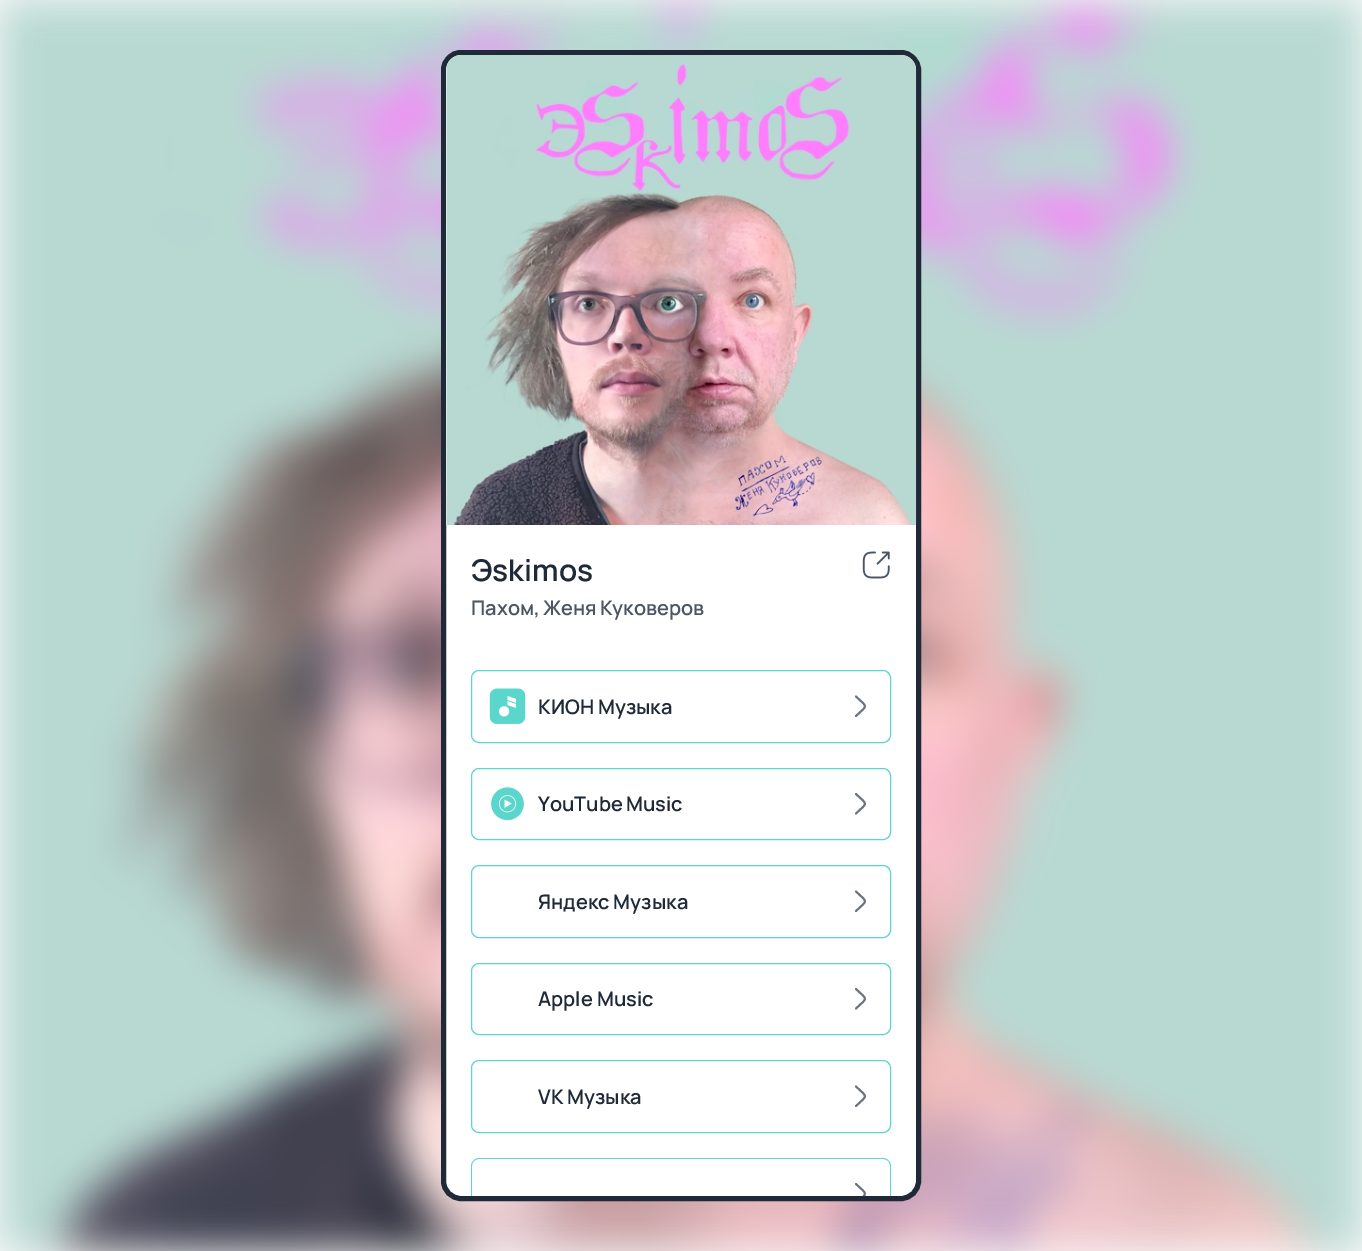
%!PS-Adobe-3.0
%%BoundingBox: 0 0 1362 1251
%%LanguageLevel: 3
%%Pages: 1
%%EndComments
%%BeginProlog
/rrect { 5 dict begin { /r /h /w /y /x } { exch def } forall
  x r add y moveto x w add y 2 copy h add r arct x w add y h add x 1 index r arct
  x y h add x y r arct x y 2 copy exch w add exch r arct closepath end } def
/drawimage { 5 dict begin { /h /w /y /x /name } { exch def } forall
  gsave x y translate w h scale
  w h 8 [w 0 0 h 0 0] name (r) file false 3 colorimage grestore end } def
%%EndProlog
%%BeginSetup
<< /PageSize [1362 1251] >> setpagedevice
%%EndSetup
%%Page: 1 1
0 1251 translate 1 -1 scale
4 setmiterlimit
0.973 setgray
0 0 1362 1251 rectfill
(images/1.raw) 0 0 1362 1251 drawimage
1 setgray
443.5 52.5 475 1146 17.5 rrect gsave fill grestore
0.122 0.161 0.216 setrgbcolor
5 setlinewidth
stroke
(images/2.raw) 446 55 471 470 drawimage
(images/3.raw) 862 551 28 28 drawimage
0.353 0.839 0.8 setrgbcolor
1 setlinewidth
471.5 670.5 419 72 7.5 rrect stroke
(images/4.raw) 489 688 37 36 drawimage
0.42 0.447 0.502 setrgbcolor
1.9 setlinewidth
1 setlinecap
1 setlinejoin
newpath 856 716 moveto 868 704.5 868 708 856 696.5 curveto stroke
0.353 0.839 0.8 setrgbcolor
1 setlinewidth
0 setlinecap
0 setlinejoin
471.5 768.5 419 71 7.5 rrect stroke
(images/5.raw) 491 787 33 34 drawimage
0.42 0.447 0.502 setrgbcolor
1.9 setlinewidth
1 setlinecap
1 setlinejoin
newpath 856 813.5 moveto 868 802 868 805.5 856 794 curveto stroke
0.353 0.839 0.8 setrgbcolor
1 setlinewidth
0 setlinecap
0 setlinejoin
471.5 865.5 419 72 7.5 rrect stroke
0.42 0.447 0.502 setrgbcolor
1.9 setlinewidth
1 setlinecap
1 setlinejoin
newpath 856 911 moveto 868 899.5 868 903 856 891.5 curveto stroke
0.353 0.839 0.8 setrgbcolor
1 setlinewidth
0 setlinecap
0 setlinejoin
471.5 963.5 419 71 7.5 rrect stroke
0.42 0.447 0.502 setrgbcolor
1.9 setlinewidth
1 setlinecap
1 setlinejoin
newpath 856 1008.5 moveto 868 997 868 1000.5 856 989 curveto stroke
0.353 0.839 0.8 setrgbcolor
1 setlinewidth
0 setlinecap
0 setlinejoin
471.5 1060.5 419 72 7.5 rrect stroke
0.42 0.447 0.502 setrgbcolor
1.9 setlinewidth
1 setlinecap
1 setlinejoin
newpath 856 1106 moveto 868 1094.5 868 1098 856 1086.5 curveto stroke
0.353 0.839 0.8 setrgbcolor
newpath 479 1158 moveto 475 1158 471 1162 471 1166 curveto 471 1196 lineto 472 1196 lineto 472 1166 lineto 472 1162 475 1159 479 1159 curveto 883 1159 lineto 887 1159 890 1162 890 1166 curveto 890 1196 lineto 891 1196 lineto 891 1166 lineto 891 1162 887 1158 883 1158 curveto closepath fill
gsave
446 55 470 1141 15 rrect clip newpath
0.42 0.447 0.502 setrgbcolor
newpath 856 1203.5 moveto 868 1192 868 1195.5 856 1184 curveto stroke
grestore
/Manrope-SemiBold [30 0 0 -30 0 0] selectfont
0.122 0.161 0.216 setrgbcolor
471 581 moveto (Эskimos) show
/Manrope-SemiBold [20 0 0 -20 0 0] selectfont
0.294 0.333 0.388 setrgbcolor
471 615 moveto -1 0 32 (Пахом, Женя Куковеров) widthshow
0.122 0.161 0.216 setrgbcolor
538 714 moveto (КИОН Музыка) show
538 811 moveto -1 0 32 (YouTube Music) widthshow
538 909 moveto (Яндекс Музыка) show
538 1006 moveto (Apple Music) show
538 1104 moveto (VK Музыка) show
showpage
%%EOF
